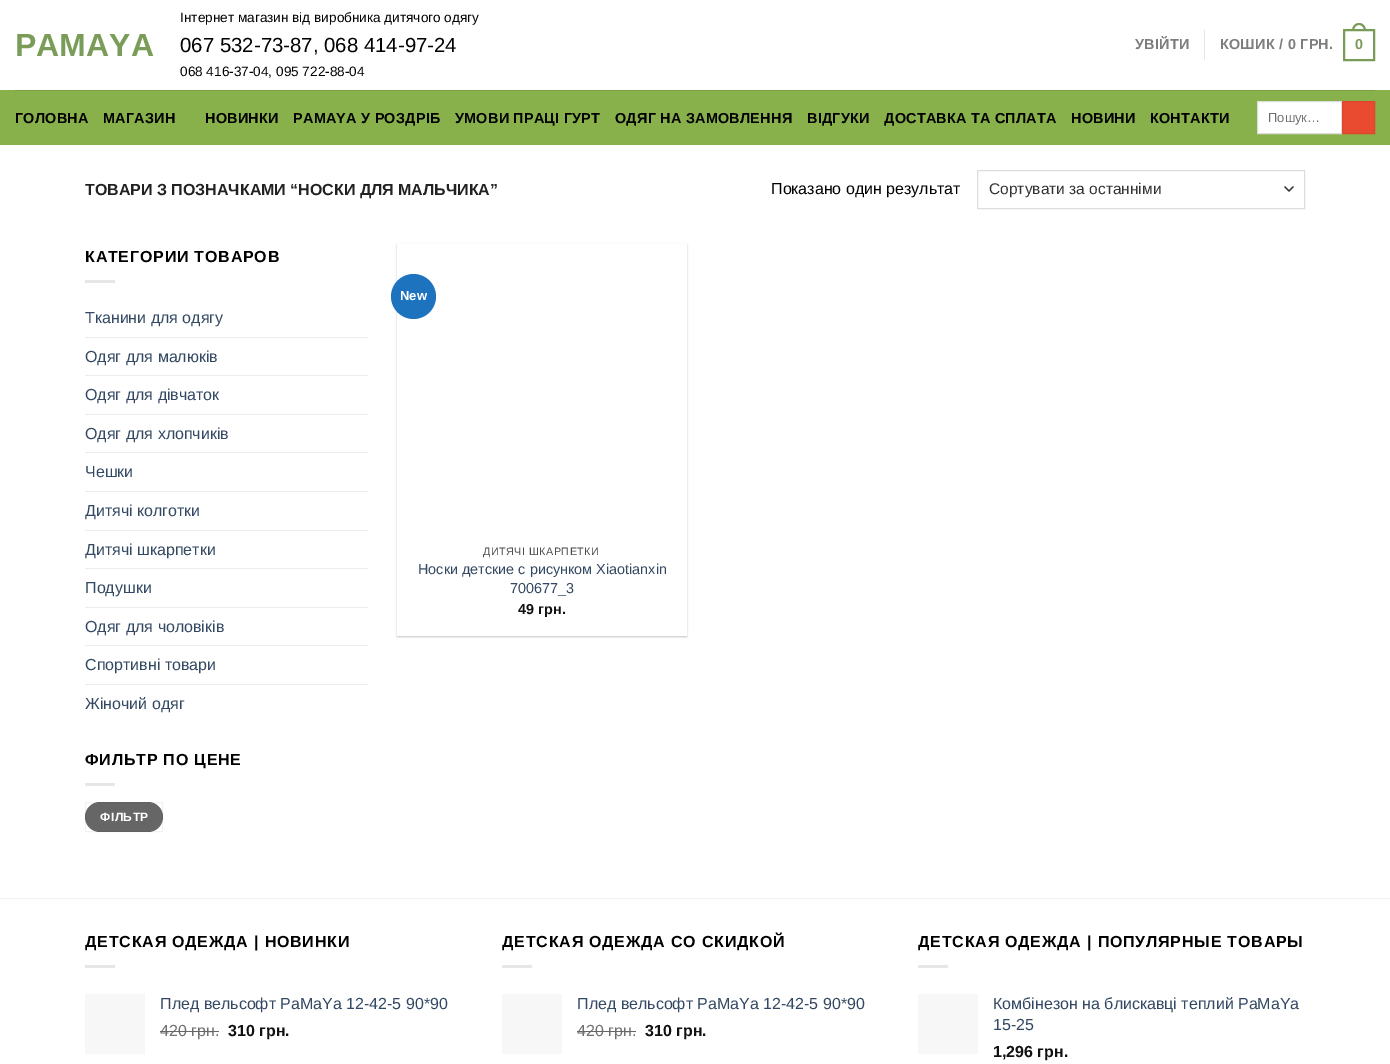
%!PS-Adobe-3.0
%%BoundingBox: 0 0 1390 1064
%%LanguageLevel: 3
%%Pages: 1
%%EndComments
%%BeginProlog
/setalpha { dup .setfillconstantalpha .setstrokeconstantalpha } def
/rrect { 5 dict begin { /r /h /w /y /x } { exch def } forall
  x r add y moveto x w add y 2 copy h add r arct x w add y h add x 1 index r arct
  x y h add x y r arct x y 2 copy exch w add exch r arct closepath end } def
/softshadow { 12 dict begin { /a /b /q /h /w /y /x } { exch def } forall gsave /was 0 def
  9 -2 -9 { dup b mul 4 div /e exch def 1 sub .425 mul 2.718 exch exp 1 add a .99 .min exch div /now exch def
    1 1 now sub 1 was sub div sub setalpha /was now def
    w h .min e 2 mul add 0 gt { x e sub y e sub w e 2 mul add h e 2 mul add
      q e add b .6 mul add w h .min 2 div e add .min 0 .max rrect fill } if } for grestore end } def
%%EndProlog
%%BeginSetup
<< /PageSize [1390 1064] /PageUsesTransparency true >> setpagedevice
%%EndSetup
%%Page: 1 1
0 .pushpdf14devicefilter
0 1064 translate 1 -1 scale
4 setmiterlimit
1 setgray
0 0 1390 1064 rectfill
0.902 setgray
1204 30 1 30 rectfill
0.478 0.612 0.349 setrgbcolor
2 setlinewidth
1344 30 30 30 rectstroke
newpath 1359 23 moveto 1363.5 23 1366 27 1366 31 curveto 1352 31 lineto 1352 27 1354.5 23 1359 23 curveto closepath 1359 25 moveto 1362.5 25 1364 28 1364 31 curveto 1354 31 lineto 1354 28 1355.5 25 1359 25 curveto closepath eofill
0.533 0.69 0.294 setrgbcolor
0 90 1390 55 rectfill
0.478 0.62 0.267 setrgbcolor
15 90 1360 1 rectfill
1 setgray
newpath 1257.5 101.5 moveto 1341.5 101.5 lineto 1341.5 133.5 lineto 1257.5 133.5 lineto closepath gsave fill grestore
0.867 setgray
1 setlinewidth
stroke
0.91 0.294 0.188 setrgbcolor
newpath 1342.5 101.5 moveto 1374.5 101.5 lineto 1374.5 133.5 lineto 1342.5 133.5 lineto closepath gsave fill grestore
0.863 0.278 0.18 setrgbcolor
stroke
0.2 setgray
1.3 setlinewidth
1 setlinecap
1 setlinejoin
newpath 1285 187 moveto 1289 191 lineto 1293 187 lineto stroke
0.867 setgray
1 setlinewidth
0 setlinecap
0 setlinejoin
977.5 170.5 327 38 rectstroke
0.902 setgray
85 280 30 3 rectfill
0.925 setgray
85 337 283 1 rectfill
85 375 283 1 rectfill
85 414 283 1 rectfill
85 452 283 1 rectfill
85 491 283 1 rectfill
85 530 283 1 rectfill
85 568 283 1 rectfill
85 607 283 1 rectfill
85 645 283 1 rectfill
85 684 283 1 rectfill
0.902 setgray
85 783 30 3 rectfill
0.4 setgray
85 802 78 30 15 rrect fill
0.05 setalpha
0 setgray
85.5 802.5 77 29 rectstroke
gsave
newpath 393 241 moveto 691 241 lineto 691 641 lineto 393 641 lineto closepath 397 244 moveto 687 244 lineto 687 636 lineto 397 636 lineto closepath eoclip newpath
1 setalpha
397 245 290 392 0 1 0.24 softshadow
grestore
1 setalpha
0.118 0.451 0.745 setrgbcolor
newpath 413.5 296.5 22.5 0 360 arc closepath fill
0.949 setgray
0 898 1390 1 rectfill
0.902 setgray
85 965 30 3 rectfill
0.969 setgray
85 994 60 60 rectfill
0.902 setgray
502 965 30 3 rectfill
0.969 setgray
502 994 60 60 rectfill
0.902 setgray
918 965 30 3 rectfill
0.969 setgray
918 994 60 60 rectfill
/LiberationSans-Bold [32 0 0 -32 0 0] selectfont
0.478 0.612 0.349 setrgbcolor
15 56 moveto (PAMAYA) show
/LiberationSans-Regular [13.6 0 0 -13.6 0 0] selectfont
0 setgray
180 22 moveto (Інтернет магазин від виробника дитячого одягу) show
/LiberationSans-Regular [20.4 0 0 -20.4 0 0] selectfont
180 52 moveto (067 532-73-87, 068 414-97-24) show
/LiberationSans-Regular [13.6 0 0 -13.6 0 0] selectfont
180 76 moveto (068 416-37-04, 095 722-88-04) show
/LiberationSans-Bold [14.4 0 0 -14.4 0 0] selectfont
0.49 setgray
1135 49 moveto 0.25 0 (УВІЙТИ) ashow
1220 49 moveto 0.25 0 (КОШИК / 0 ГРН.) ashow
0.478 0.612 0.349 setrgbcolor
1355 49 moveto 0.25 0 (0) ashow
0 setgray
15 123 moveto 0.25 0 (ГОЛОВНА) ashow
103 123 moveto 0.25 0 (МАГАЗИН) ashow
205 123 moveto 0.25 0 (НОВИНКИ) ashow
293 123 moveto 0.25 0 (PAMAYA У РОЗДРІБ) ashow
455 123 moveto 0.25 0 (УМОВИ ПРАЦІ ГУРТ) ashow
615 123 moveto 0.25 0 (ОДЯГ НА ЗАМОВЛЕННЯ) ashow
807 123 moveto 0.25 0 (ВІДГУКИ) ashow
884 123 moveto 0.25 0 (ДОСТАВКА ТА СПЛАТА) ashow
1071 123 moveto 0.25 0 (НОВИНИ) ashow
1150 123 moveto 0.25 0 (КОНТАКТИ) ashow
/LiberationSans-Regular [13 0 0 -13 0 0] selectfont
0.439 setgray
1268 122 moveto (Пошук…) show
/LiberationSans-Bold [16 0 0 -16 0 0] selectfont
0.133 setgray
85 195 moveto (ТОВАРИ З ПОЗНАЧКАМИ “НОСКИ ДЛЯ МАЛЬЧИКА”) show
/LiberationSans-Regular [16 0 0 -16 0 0] selectfont
0 setgray
771 194 moveto (Показано один результат) show
/LiberationSans-Regular [15.5 0 0 -15.5 0 0] selectfont
0.2 setgray
989 194 moveto (Сортувати за останніми) show
/LiberationSans-Bold [16 0 0 -16 0 0] selectfont
0 setgray
85 262 moveto 0.8 0 (КАТЕГОРИИ ТОВАРОВ) ashow
/LiberationSans-Regular [16 0 0 -16 0 0] selectfont
0.2 0.282 0.384 setrgbcolor
85 323 moveto (Тканини для одягу) show
85 362 moveto (Одяг для малюків) show
85 400 moveto (Одяг для дівчаток) show
85 439 moveto (Одяг для хлопчиків) show
85 477 moveto (Чешки) show
85 516 moveto (Дитячі колготки) show
85 555 moveto (Дитячі шкарпетки) show
85 593 moveto (Подушки) show
85 632 moveto (Одяг для чоловіків) show
85 670 moveto (Спортивні товари) show
85 709 moveto (Жіночий одяг) show
/LiberationSans-Bold [16 0 0 -16 0 0] selectfont
0 setgray
85 765 moveto 0.8 0 (ФИЛЬТР ПО ЦЕНЕ) ashow
/LiberationSans-Bold [12 0 0 -12 0 0] selectfont
1 setgray
100 821 moveto 0.5 0 (ФІЛЬТР) ashow
/LiberationSans-Bold [13 0 0 -13 0 0] selectfont
400 300 moveto (New) show
/LiberationSans-Regular [10.75 0 0 -10.75 0 0] selectfont
0.302 setgray
483 555 moveto 0.5 0 (ДИТЯЧІ ШКАРПЕТКИ) ashow
/LiberationSans-Regular [14.4 0 0 -14.4 0 0] selectfont
0.2 0.282 0.384 setrgbcolor
418 574 moveto (Носки детские с рисунком Xiaotianxin) show
510 593 moveto (700677_3) show
/LiberationSans-Bold [14.4 0 0 -14.4 0 0] selectfont
0.067 setgray
518 614 moveto (49 грн.) show
/LiberationSans-Bold [16 0 0 -16 0 0] selectfont
0 setgray
85 947 moveto 0.8 0 (ДЕТСКАЯ ОДЕЖДА | НОВИНКИ) ashow
/LiberationSans-Regular [16 0 0 -16 0 0] selectfont
0.2 0.282 0.384 setrgbcolor
160 1009 moveto (Плед вельсофт PaMaYa 12-42-5 90*90) show
0.439 setgray
160 1036 moveto (420 грн.) show
0.4 setgray
160 1031 59 1 rectfill
/LiberationSans-Bold [16 0 0 -16 0 0] selectfont
0.067 setgray
228 1036 moveto (310 грн.) show
0 setgray
502 947 moveto 0.8 0 (ДЕТСКАЯ ОДЕЖДА СО СКИДКОЙ) ashow
/LiberationSans-Regular [16 0 0 -16 0 0] selectfont
0.2 0.282 0.384 setrgbcolor
577 1009 moveto (Плед вельсофт PaMaYa 12-42-5 90*90) show
0.439 setgray
577 1036 moveto (420 грн.) show
0.4 setgray
577 1031 59 1 rectfill
/LiberationSans-Bold [16 0 0 -16 0 0] selectfont
0.067 setgray
645 1036 moveto (310 грн.) show
0 setgray
918 947 moveto 0.8 0 (ДЕТСКАЯ ОДЕЖДА | ПОПУЛЯРНЫЕ ТОВАРЫ) ashow
/LiberationSans-Regular [16 0 0 -16 0 0] selectfont
0.2 0.282 0.384 setrgbcolor
993 1009 moveto (Комбінезон на блискавці теплий PaMaYa) show
993 1030 moveto (15-25) show
/LiberationSans-Bold [16 0 0 -16 0 0] selectfont
0.067 setgray
993 1057 moveto (1,296 грн.) show
.poppdf14devicefilter showpage
%%EOF
